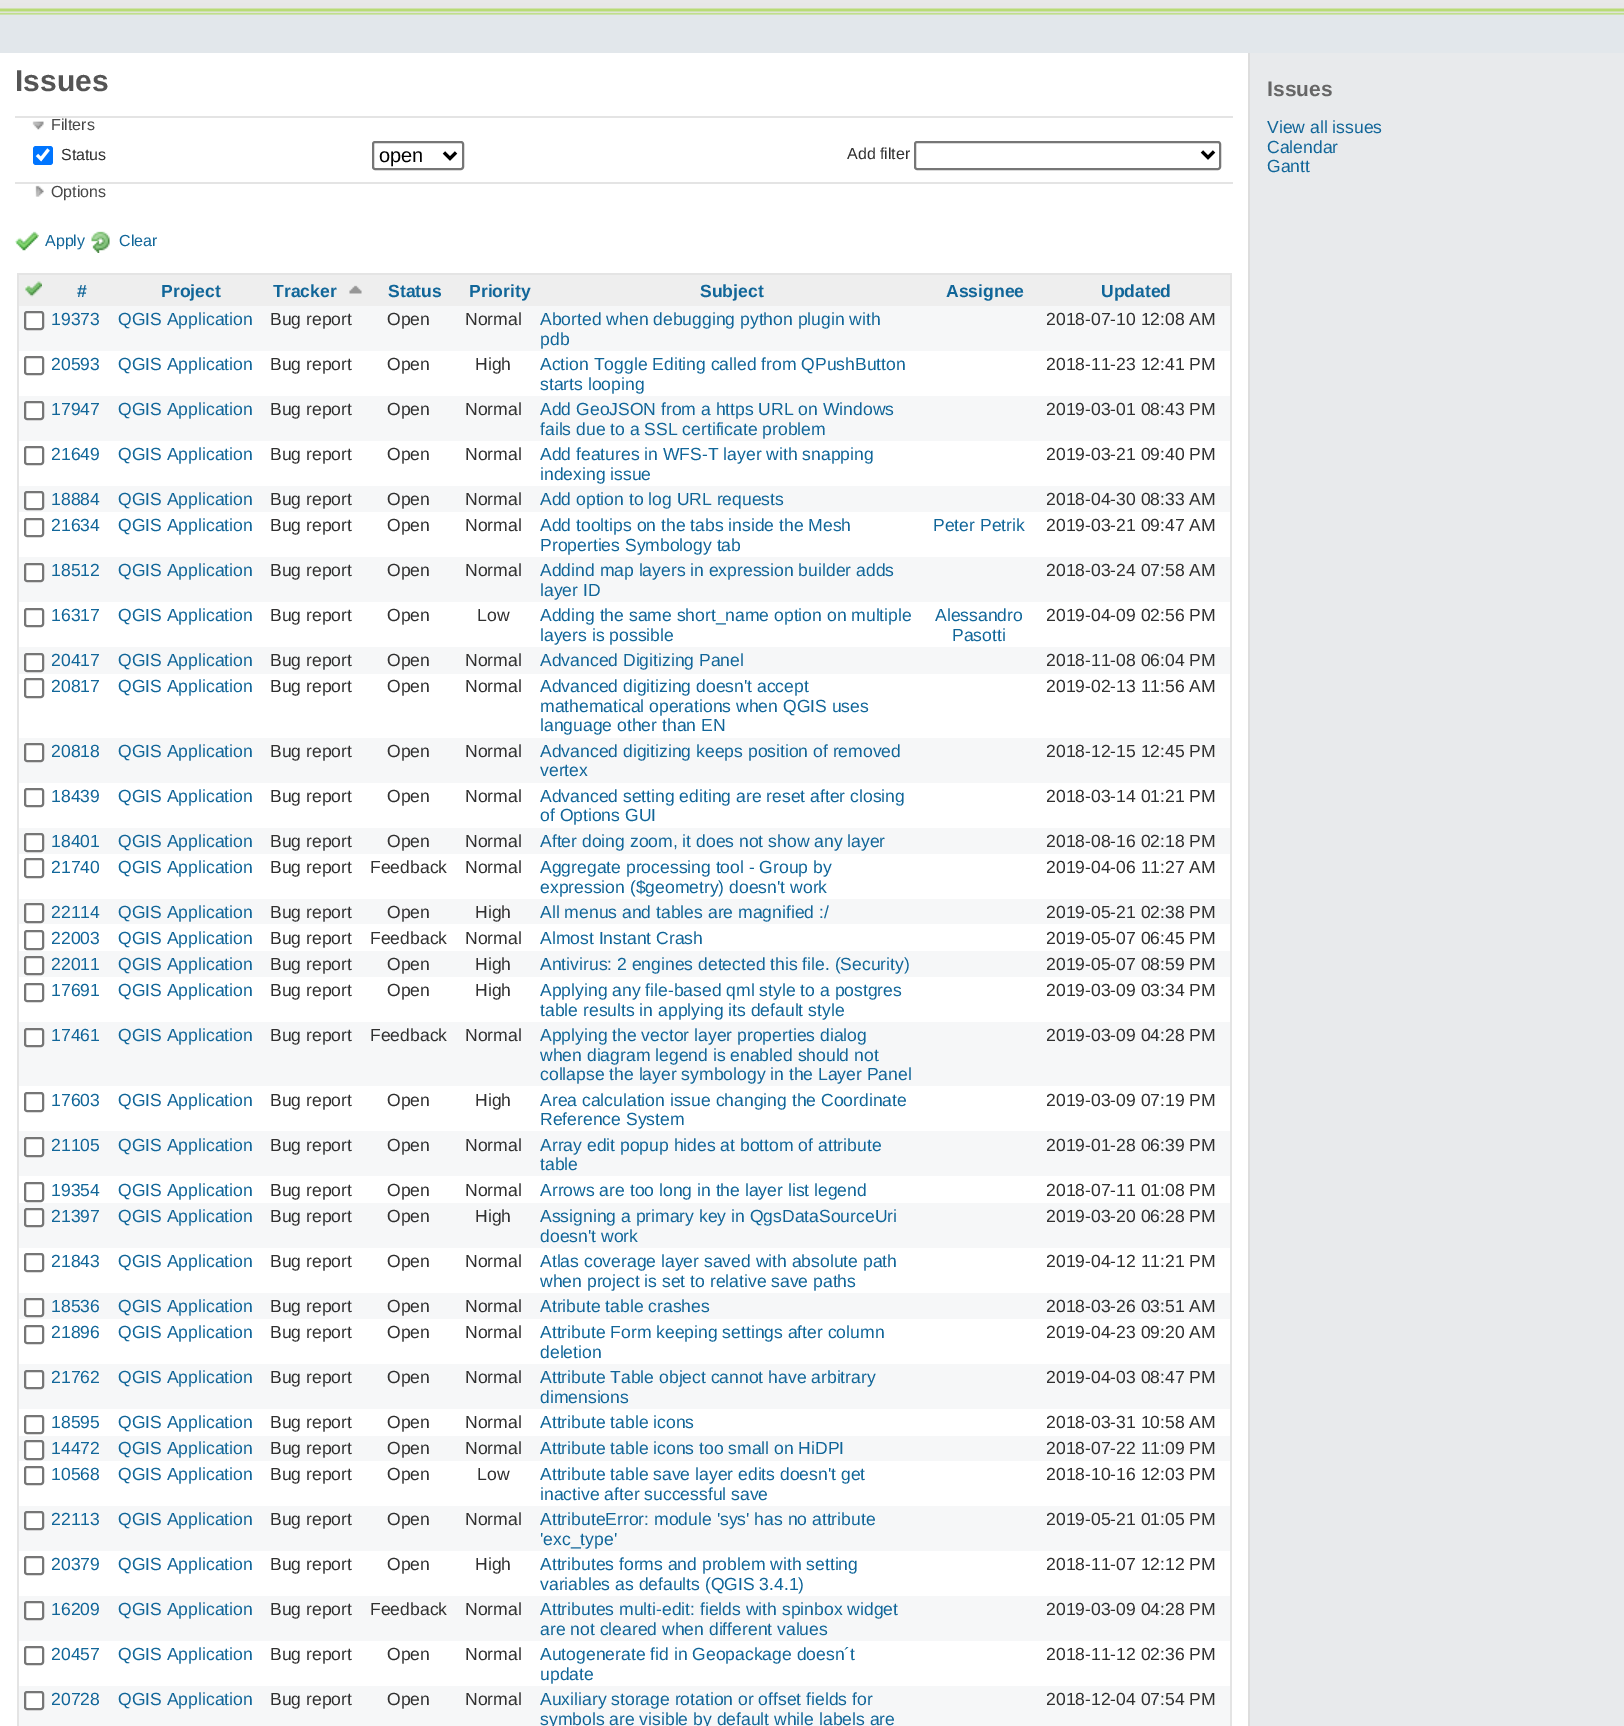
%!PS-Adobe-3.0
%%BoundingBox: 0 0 1624 1726
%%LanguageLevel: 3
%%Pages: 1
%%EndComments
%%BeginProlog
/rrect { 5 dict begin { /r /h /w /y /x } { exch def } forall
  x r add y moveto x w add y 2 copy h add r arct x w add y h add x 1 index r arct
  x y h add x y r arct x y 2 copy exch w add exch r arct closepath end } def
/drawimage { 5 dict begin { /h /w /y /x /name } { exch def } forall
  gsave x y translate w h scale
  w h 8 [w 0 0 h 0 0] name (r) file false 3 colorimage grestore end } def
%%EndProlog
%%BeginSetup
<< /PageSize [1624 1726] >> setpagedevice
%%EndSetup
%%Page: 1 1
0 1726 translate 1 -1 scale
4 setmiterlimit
0.91 0.918 0.925 setrgbcolor
0 0 1624 1726 rectfill
0.886 0.906 0.922 setrgbcolor
0 14 1624 39 rectfill
(images/1.raw) 0 0 1624 15 drawimage
1 setgray
0 53 1248 1673 rectfill
0.867 setgray
1248 53 2 1673 rectfill
0.894 setgray
15 116 1218 2 rectfill
(images/2.raw) 32 121 12 9 drawimage
0 0.459 1 setrgbcolor
33 146 20 19 3 rrect fill
1 setgray
3.1 setlinewidth
newpath 37 155 moveto 41 159 lineto 48.5 149.5 lineto stroke
0.463 setgray
2 setlinewidth
373 142 90 27 2 rrect stroke
0 setgray
3 setlinewidth
newpath 444 152.5 moveto 450 158.5 lineto 456 152.5 lineto stroke
0.463 setgray
2 setlinewidth
915 142 305 27 2 rrect stroke
0 setgray
3 setlinewidth
newpath 1202 151.5 moveto 1208 157.5 lineto 1214 151.5 lineto stroke
0.894 setgray
15 182 1218 2 rectfill
(images/3.raw) 35 185 9 12 drawimage
(images/4.raw) 15 231 24 20 drawimage
(images/5.raw) 91 231 19 22 drawimage
17 273 1215 2 rectfill
1230 273 2 1453 rectfill
17 273 2 1453 rectfill
0.933 setgray
19 275 1211 31 rectfill
(images/6.raw) 25 281 17 16 drawimage
(images/7.raw) 349 285 13 9 drawimage
0.965 0.969 0.973 setrgbcolor
19 306 1211 45 rectfill
1 setgray
25 312 18 17 2 rrect gsave fill grestore
0.463 setgray
2 setlinewidth
stroke
25 357 18 17 2 rrect stroke
0.965 0.969 0.973 setrgbcolor
19 396 1211 45 rectfill
1 setgray
25 402 18 17 2 rrect gsave fill grestore
0.463 setgray
stroke
25 447 18 17 2 rrect stroke
0.965 0.969 0.973 setrgbcolor
19 486 1211 26 rectfill
1 setgray
25 492 18 17 2 rrect gsave fill grestore
0.463 setgray
stroke
25 519 18 17 2 rrect stroke
0.965 0.969 0.973 setrgbcolor
19 557 1211 45 rectfill
1 setgray
25 564 18 17 2 rrect gsave fill grestore
0.463 setgray
stroke
25 609 18 17 2 rrect stroke
0.965 0.969 0.973 setrgbcolor
19 647 1211 27 rectfill
1 setgray
25 654 18 17 2 rrect gsave fill grestore
0.463 setgray
stroke
25 679 18 18 2 rrect stroke
0.965 0.969 0.973 setrgbcolor
19 738 1211 45 rectfill
1 setgray
25 744 18 17 2 rrect gsave fill grestore
0.463 setgray
stroke
25 789 18 17 2 rrect stroke
0.965 0.969 0.973 setrgbcolor
19 828 1211 26 rectfill
1 setgray
25 834 18 17 2 rrect gsave fill grestore
0.463 setgray
stroke
25 859 18 18 2 rrect stroke
0.965 0.969 0.973 setrgbcolor
19 899 1211 25 rectfill
1 setgray
25 904 18 18 2 rrect gsave fill grestore
0.463 setgray
stroke
25 931 18 18 2 rrect stroke
0.965 0.969 0.973 setrgbcolor
19 951 1211 26 rectfill
1 setgray
25 957 18 17 2 rrect gsave fill grestore
0.463 setgray
stroke
25 984 18 17 2 rrect stroke
0.965 0.969 0.973 setrgbcolor
19 1022 1211 64 rectfill
1 setgray
25 1029 18 17 2 rrect gsave fill grestore
0.463 setgray
stroke
25 1093 18 18 2 rrect stroke
0.965 0.969 0.973 setrgbcolor
19 1131 1211 45 rectfill
1 setgray
25 1138 18 18 2 rrect gsave fill grestore
0.463 setgray
stroke
25 1183 18 18 2 rrect stroke
0.965 0.969 0.973 setrgbcolor
19 1203 1211 45 rectfill
1 setgray
25 1209 18 17 2 rrect gsave fill grestore
0.463 setgray
stroke
25 1254 18 17 2 rrect stroke
0.965 0.969 0.973 setrgbcolor
19 1293 1211 26 rectfill
1 setgray
25 1299 18 17 2 rrect gsave fill grestore
0.463 setgray
stroke
25 1326 18 17 2 rrect stroke
0.965 0.969 0.973 setrgbcolor
19 1364 1211 45 rectfill
1 setgray
25 1371 18 17 2 rrect gsave fill grestore
0.463 setgray
stroke
25 1416 18 17 2 rrect stroke
0.965 0.969 0.973 setrgbcolor
19 1436 1211 25 rectfill
1 setgray
25 1441 18 18 2 rrect gsave fill grestore
0.463 setgray
stroke
25 1467 18 17 2 rrect stroke
0.965 0.969 0.973 setrgbcolor
19 1506 1211 45 rectfill
1 setgray
25 1512 18 17 2 rrect gsave fill grestore
0.463 setgray
stroke
25 1557 18 17 2 rrect stroke
0.965 0.969 0.973 setrgbcolor
19 1596 1211 45 rectfill
1 setgray
25 1602 18 17 2 rrect gsave fill grestore
0.463 setgray
stroke
25 1647 18 17 2 rrect stroke
0.965 0.969 0.973 setrgbcolor
19 1686 1211 40 rectfill
1 setgray
25 1692 18 17 2 rrect gsave fill grestore
0.463 setgray
stroke
/LiberationSans-Bold [30 0 0 -30 0 0] selectfont
0.333 setgray
15 91 moveto (Issues) show
/LiberationSans-Regular [16 0 0 -16 0 0] selectfont
0.282 setgray
51 130 moveto (Filters) show
0.188 setgray
61 160 moveto (Status) show
/LiberationSans-Regular [20 0 0 -20 0 0] selectfont
0 setgray
379 162 moveto (open) show
/LiberationSans-Regular [16 0 0 -16 0 0] selectfont
0.188 setgray
847 159 moveto (Add filter) show
0.282 setgray
51 197 moveto (Options) show
0.067 0.4 0.6 setrgbcolor
45 246 moveto (Apply) show
119 246 moveto (Clear) show
/LiberationSans-Bold [17.55 0 0 -17.55 0 0] selectfont
77 297 moveto (#) show
161 297 moveto (Project) show
273 297 moveto (Tracker) show
388 297 moveto (Status) show
469 297 moveto (Priority) show
700 297 moveto (Subject) show
946 297 moveto (Assignee) show
1101 297 moveto (Updated) show
/LiberationSans-Regular [17.55 0 0 -17.55 0 0] selectfont
51 325 moveto (19373) show
118 325 moveto (QGIS Application) show
0.188 setgray
270 325 moveto (Bug report) show
387 325 moveto (Open) show
465 325 moveto (Normal) show
0.067 0.4 0.6 setrgbcolor
540 325 moveto (Aborted when debugging python plugin with) show
540 345 moveto (pdb) show
0.188 setgray
1046 325 moveto (2018-07-10 12:08 AM) show
0.067 0.4 0.6 setrgbcolor
51 370 moveto (20593) show
118 370 moveto (QGIS Application) show
0.188 setgray
270 370 moveto (Bug report) show
387 370 moveto (Open) show
475 370 moveto (High) show
0.067 0.4 0.6 setrgbcolor
540 370 moveto (Action Toggle Editing called from QPushButton) show
540 390 moveto (starts looping) show
0.188 setgray
1046 370 moveto (2018-11-23 12:41 PM) show
0.067 0.4 0.6 setrgbcolor
51 415 moveto (17947) show
118 415 moveto (QGIS Application) show
0.188 setgray
270 415 moveto (Bug report) show
387 415 moveto (Open) show
465 415 moveto (Normal) show
0.067 0.4 0.6 setrgbcolor
540 415 moveto (Add GeoJSON from a https URL on Windows) show
540 435 moveto (fails due to a SSL certificate problem) show
0.188 setgray
1046 415 moveto (2019-03-01 08:43 PM) show
0.067 0.4 0.6 setrgbcolor
51 460 moveto (21649) show
118 460 moveto (QGIS Application) show
0.188 setgray
270 460 moveto (Bug report) show
387 460 moveto (Open) show
465 460 moveto (Normal) show
0.067 0.4 0.6 setrgbcolor
540 460 moveto (Add features in WFS-T layer with snapping) show
540 480 moveto (indexing issue) show
0.188 setgray
1046 460 moveto (2019-03-21 09:40 PM) show
0.067 0.4 0.6 setrgbcolor
51 505 moveto (18884) show
118 505 moveto (QGIS Application) show
0.188 setgray
270 505 moveto (Bug report) show
387 505 moveto (Open) show
465 505 moveto (Normal) show
0.067 0.4 0.6 setrgbcolor
540 505 moveto (Add option to log URL requests) show
0.188 setgray
1046 505 moveto (2018-04-30 08:33 AM) show
0.067 0.4 0.6 setrgbcolor
51 531 moveto (21634) show
118 531 moveto (QGIS Application) show
0.188 setgray
270 531 moveto (Bug report) show
387 531 moveto (Open) show
465 531 moveto (Normal) show
0.067 0.4 0.6 setrgbcolor
540 531 moveto (Add tooltips on the tabs inside the Mesh) show
540 551 moveto (Properties Symbology tab) show
933 531 moveto (Peter Petrik) show
0.188 setgray
1046 531 moveto (2019-03-21 09:47 AM) show
0.067 0.4 0.6 setrgbcolor
51 576 moveto (18512) show
118 576 moveto (QGIS Application) show
0.188 setgray
270 576 moveto (Bug report) show
387 576 moveto (Open) show
465 576 moveto (Normal) show
0.067 0.4 0.6 setrgbcolor
540 576 moveto (Addind map layers in expression builder adds) show
540 596 moveto (layer ID) show
0.188 setgray
1046 576 moveto (2018-03-24 07:58 AM) show
0.067 0.4 0.6 setrgbcolor
51 621 moveto (16317) show
118 621 moveto (QGIS Application) show
0.188 setgray
270 621 moveto (Bug report) show
387 621 moveto (Open) show
477 621 moveto (Low) show
0.067 0.4 0.6 setrgbcolor
540 621 moveto (Adding the same short_name option on multiple) show
540 641 moveto (layers is possible) show
935 621 moveto (Alessandro) show
952 641 moveto (Pasotti) show
0.188 setgray
1046 621 moveto (2019-04-09 02:56 PM) show
0.067 0.4 0.6 setrgbcolor
51 666 moveto (20417) show
118 666 moveto (QGIS Application) show
0.188 setgray
270 666 moveto (Bug report) show
387 666 moveto (Open) show
465 666 moveto (Normal) show
0.067 0.4 0.6 setrgbcolor
540 666 moveto (Advanced Digitizing Panel) show
0.188 setgray
1046 666 moveto (2018-11-08 06:04 PM) show
0.067 0.4 0.6 setrgbcolor
51 692 moveto (20817) show
118 692 moveto (QGIS Application) show
0.188 setgray
270 692 moveto (Bug report) show
387 692 moveto (Open) show
465 692 moveto (Normal) show
0.067 0.4 0.6 setrgbcolor
540 692 moveto (Advanced digitizing doesn't accept) show
540 712 moveto (mathematical operations when QGIS uses) show
540 731 moveto (language other than EN) show
0.188 setgray
1046 692 moveto (2019-02-13 11:56 AM) show
0.067 0.4 0.6 setrgbcolor
51 757 moveto (20818) show
118 757 moveto (QGIS Application) show
0.188 setgray
270 757 moveto (Bug report) show
387 757 moveto (Open) show
465 757 moveto (Normal) show
0.067 0.4 0.6 setrgbcolor
540 757 moveto (Advanced digitizing keeps position of removed) show
540 776 moveto (vertex) show
0.188 setgray
1046 757 moveto (2018-12-15 12:45 PM) show
0.067 0.4 0.6 setrgbcolor
51 802 moveto (18439) show
118 802 moveto (QGIS Application) show
0.188 setgray
270 802 moveto (Bug report) show
387 802 moveto (Open) show
465 802 moveto (Normal) show
0.067 0.4 0.6 setrgbcolor
540 802 moveto (Advanced setting editing are reset after closing) show
540 821 moveto (of Options GUI) show
0.188 setgray
1046 802 moveto (2018-03-14 01:21 PM) show
0.067 0.4 0.6 setrgbcolor
51 847 moveto (18401) show
118 847 moveto (QGIS Application) show
0.188 setgray
270 847 moveto (Bug report) show
387 847 moveto (Open) show
465 847 moveto (Normal) show
0.067 0.4 0.6 setrgbcolor
540 847 moveto (After doing zoom, it does not show any layer) show
0.188 setgray
1046 847 moveto (2018-08-16 02:18 PM) show
0.067 0.4 0.6 setrgbcolor
51 873 moveto (21740) show
118 873 moveto (QGIS Application) show
0.188 setgray
270 873 moveto (Bug report) show
370 873 moveto (Feedback) show
465 873 moveto (Normal) show
0.067 0.4 0.6 setrgbcolor
540 873 moveto (Aggregate processing tool - Group by) show
540 893 moveto (expression \($geometry\) doesn't work) show
0.188 setgray
1046 873 moveto (2019-04-06 11:27 AM) show
0.067 0.4 0.6 setrgbcolor
51 918 moveto (22114) show
118 918 moveto (QGIS Application) show
0.188 setgray
270 918 moveto (Bug report) show
387 918 moveto (Open) show
475 918 moveto (High) show
0.067 0.4 0.6 setrgbcolor
540 918 moveto (All menus and tables are magnified :/) show
0.188 setgray
1046 918 moveto (2019-05-21 02:38 PM) show
0.067 0.4 0.6 setrgbcolor
51 944 moveto (22003) show
118 944 moveto (QGIS Application) show
0.188 setgray
270 944 moveto (Bug report) show
370 944 moveto (Feedback) show
465 944 moveto (Normal) show
0.067 0.4 0.6 setrgbcolor
540 944 moveto (Almost Instant Crash) show
0.188 setgray
1046 944 moveto (2019-05-07 06:45 PM) show
0.067 0.4 0.6 setrgbcolor
51 970 moveto (22011) show
118 970 moveto (QGIS Application) show
0.188 setgray
270 970 moveto (Bug report) show
387 970 moveto (Open) show
475 970 moveto (High) show
0.067 0.4 0.6 setrgbcolor
540 970 moveto (Antivirus: 2 engines detected this file. \(Security\)) show
0.188 setgray
1046 970 moveto (2019-05-07 08:59 PM) show
0.067 0.4 0.6 setrgbcolor
51 996 moveto (17691) show
118 996 moveto (QGIS Application) show
0.188 setgray
270 996 moveto (Bug report) show
387 996 moveto (Open) show
475 996 moveto (High) show
0.067 0.4 0.6 setrgbcolor
540 996 moveto (Applying any file-based qml style to a postgres) show
540 1016 moveto (table results in applying its default style) show
0.188 setgray
1046 996 moveto (2019-03-09 03:34 PM) show
0.067 0.4 0.6 setrgbcolor
51 1041 moveto (17461) show
118 1041 moveto (QGIS Application) show
0.188 setgray
270 1041 moveto (Bug report) show
370 1041 moveto (Feedback) show
465 1041 moveto (Normal) show
0.067 0.4 0.6 setrgbcolor
540 1041 moveto (Applying the vector layer properties dialog) show
540 1061 moveto (when diagram legend is enabled should not) show
540 1080 moveto (collapse the layer symbology in the Layer Panel) show
0.188 setgray
1046 1041 moveto (2019-03-09 04:28 PM) show
0.067 0.4 0.6 setrgbcolor
51 1106 moveto (17603) show
118 1106 moveto (QGIS Application) show
0.188 setgray
270 1106 moveto (Bug report) show
387 1106 moveto (Open) show
475 1106 moveto (High) show
0.067 0.4 0.6 setrgbcolor
540 1106 moveto (Area calculation issue changing the Coordinate) show
540 1125 moveto (Reference System) show
0.188 setgray
1046 1106 moveto (2019-03-09 07:19 PM) show
0.067 0.4 0.6 setrgbcolor
51 1151 moveto (21105) show
118 1151 moveto (QGIS Application) show
0.188 setgray
270 1151 moveto (Bug report) show
387 1151 moveto (Open) show
465 1151 moveto (Normal) show
0.067 0.4 0.6 setrgbcolor
540 1151 moveto (Array edit popup hides at bottom of attribute) show
540 1170 moveto (table) show
0.188 setgray
1046 1151 moveto (2019-01-28 06:39 PM) show
0.067 0.4 0.6 setrgbcolor
51 1196 moveto (19354) show
118 1196 moveto (QGIS Application) show
0.188 setgray
270 1196 moveto (Bug report) show
387 1196 moveto (Open) show
465 1196 moveto (Normal) show
0.067 0.4 0.6 setrgbcolor
540 1196 moveto (Arrows are too long in the layer list legend) show
0.188 setgray
1046 1196 moveto (2018-07-11 01:08 PM) show
0.067 0.4 0.6 setrgbcolor
51 1222 moveto (21397) show
118 1222 moveto (QGIS Application) show
0.188 setgray
270 1222 moveto (Bug report) show
387 1222 moveto (Open) show
475 1222 moveto (High) show
0.067 0.4 0.6 setrgbcolor
540 1222 moveto (Assigning a primary key in QgsDataSourceUri) show
540 1242 moveto (doesn't work) show
0.188 setgray
1046 1222 moveto (2019-03-20 06:28 PM) show
0.067 0.4 0.6 setrgbcolor
51 1267 moveto (21843) show
118 1267 moveto (QGIS Application) show
0.188 setgray
270 1267 moveto (Bug report) show
387 1267 moveto (Open) show
465 1267 moveto (Normal) show
0.067 0.4 0.6 setrgbcolor
540 1267 moveto (Atlas coverage layer saved with absolute path) show
540 1287 moveto (when project is set to relative save paths) show
0.188 setgray
1046 1267 moveto (2019-04-12 11:21 PM) show
0.067 0.4 0.6 setrgbcolor
51 1312 moveto (18536) show
118 1312 moveto (QGIS Application) show
0.188 setgray
270 1312 moveto (Bug report) show
387 1312 moveto (Open) show
465 1312 moveto (Normal) show
0.067 0.4 0.6 setrgbcolor
540 1312 moveto (Atribute table crashes) show
0.188 setgray
1046 1312 moveto (2018-03-26 03:51 AM) show
0.067 0.4 0.6 setrgbcolor
51 1338 moveto (21896) show
118 1338 moveto (QGIS Application) show
0.188 setgray
270 1338 moveto (Bug report) show
387 1338 moveto (Open) show
465 1338 moveto (Normal) show
0.067 0.4 0.6 setrgbcolor
540 1338 moveto (Attribute Form keeping settings after column) show
540 1358 moveto (deletion) show
0.188 setgray
1046 1338 moveto (2019-04-23 09:20 AM) show
0.067 0.4 0.6 setrgbcolor
51 1383 moveto (21762) show
118 1383 moveto (QGIS Application) show
0.188 setgray
270 1383 moveto (Bug report) show
387 1383 moveto (Open) show
465 1383 moveto (Normal) show
0.067 0.4 0.6 setrgbcolor
540 1383 moveto (Attribute Table object cannot have arbitrary) show
540 1403 moveto (dimensions) show
0.188 setgray
1046 1383 moveto (2019-04-03 08:47 PM) show
0.067 0.4 0.6 setrgbcolor
51 1428 moveto (18595) show
118 1428 moveto (QGIS Application) show
0.188 setgray
270 1428 moveto (Bug report) show
387 1428 moveto (Open) show
465 1428 moveto (Normal) show
0.067 0.4 0.6 setrgbcolor
540 1428 moveto (Attribute table icons) show
0.188 setgray
1046 1428 moveto (2018-03-31 10:58 AM) show
0.067 0.4 0.6 setrgbcolor
51 1454 moveto (14472) show
118 1454 moveto (QGIS Application) show
0.188 setgray
270 1454 moveto (Bug report) show
387 1454 moveto (Open) show
465 1454 moveto (Normal) show
0.067 0.4 0.6 setrgbcolor
540 1454 moveto (Attribute table icons too small on HiDPI) show
0.188 setgray
1046 1454 moveto (2018-07-22 11:09 PM) show
0.067 0.4 0.6 setrgbcolor
51 1480 moveto (10568) show
118 1480 moveto (QGIS Application) show
0.188 setgray
270 1480 moveto (Bug report) show
387 1480 moveto (Open) show
477 1480 moveto (Low) show
0.067 0.4 0.6 setrgbcolor
540 1480 moveto (Attribute table save layer edits doesn't get) show
540 1500 moveto (inactive after successful save) show
0.188 setgray
1046 1480 moveto (2018-10-16 12:03 PM) show
0.067 0.4 0.6 setrgbcolor
51 1525 moveto (22113) show
118 1525 moveto (QGIS Application) show
0.188 setgray
270 1525 moveto (Bug report) show
387 1525 moveto (Open) show
465 1525 moveto (Normal) show
0.067 0.4 0.6 setrgbcolor
540 1525 moveto (AttributeError: module 'sys' has no attribute) show
540 1545 moveto ('exc_type') show
0.188 setgray
1046 1525 moveto (2019-05-21 01:05 PM) show
0.067 0.4 0.6 setrgbcolor
51 1570 moveto (20379) show
118 1570 moveto (QGIS Application) show
0.188 setgray
270 1570 moveto (Bug report) show
387 1570 moveto (Open) show
475 1570 moveto (High) show
0.067 0.4 0.6 setrgbcolor
540 1570 moveto (Attributes forms and problem with setting) show
540 1590 moveto (variables as defaults \(QGIS 3.4.1\)) show
0.188 setgray
1046 1570 moveto (2018-11-07 12:12 PM) show
0.067 0.4 0.6 setrgbcolor
51 1615 moveto (16209) show
118 1615 moveto (QGIS Application) show
0.188 setgray
270 1615 moveto (Bug report) show
370 1615 moveto (Feedback) show
465 1615 moveto (Normal) show
0.067 0.4 0.6 setrgbcolor
540 1615 moveto (Attributes multi-edit: fields with spinbox widget) show
540 1635 moveto (are not cleared when different values) show
0.188 setgray
1046 1615 moveto (2019-03-09 04:28 PM) show
0.067 0.4 0.6 setrgbcolor
51 1660 moveto (20457) show
118 1660 moveto (QGIS Application) show
0.188 setgray
270 1660 moveto (Bug report) show
387 1660 moveto (Open) show
465 1660 moveto (Normal) show
0.067 0.4 0.6 setrgbcolor
540 1660 moveto (Autogenerate fid in Geopackage doesn´t) show
540 1680 moveto (update) show
0.188 setgray
1046 1660 moveto (2018-11-12 02:36 PM) show
0.067 0.4 0.6 setrgbcolor
51 1705 moveto (20728) show
118 1705 moveto (QGIS Application) show
0.188 setgray
270 1705 moveto (Bug report) show
387 1705 moveto (Open) show
465 1705 moveto (Normal) show
0.067 0.4 0.6 setrgbcolor
540 1705 moveto (Auxiliary storage rotation or offset fields for) show
540 1725 moveto (symbols are visible by default while labels are) show
0.188 setgray
1046 1705 moveto (2018-12-04 07:54 PM) show
/LiberationSans-Bold [21 0 0 -21 0 0] selectfont
0.4 setgray
1267 96 moveto (Issues) show
/LiberationSans-Regular [17.55 0 0 -17.55 0 0] selectfont
0.067 0.4 0.6 setrgbcolor
1267 133 moveto (View all issues) show
1267 153 moveto (Calendar) show
1267 172 moveto (Gantt) show
showpage
%%EOF
